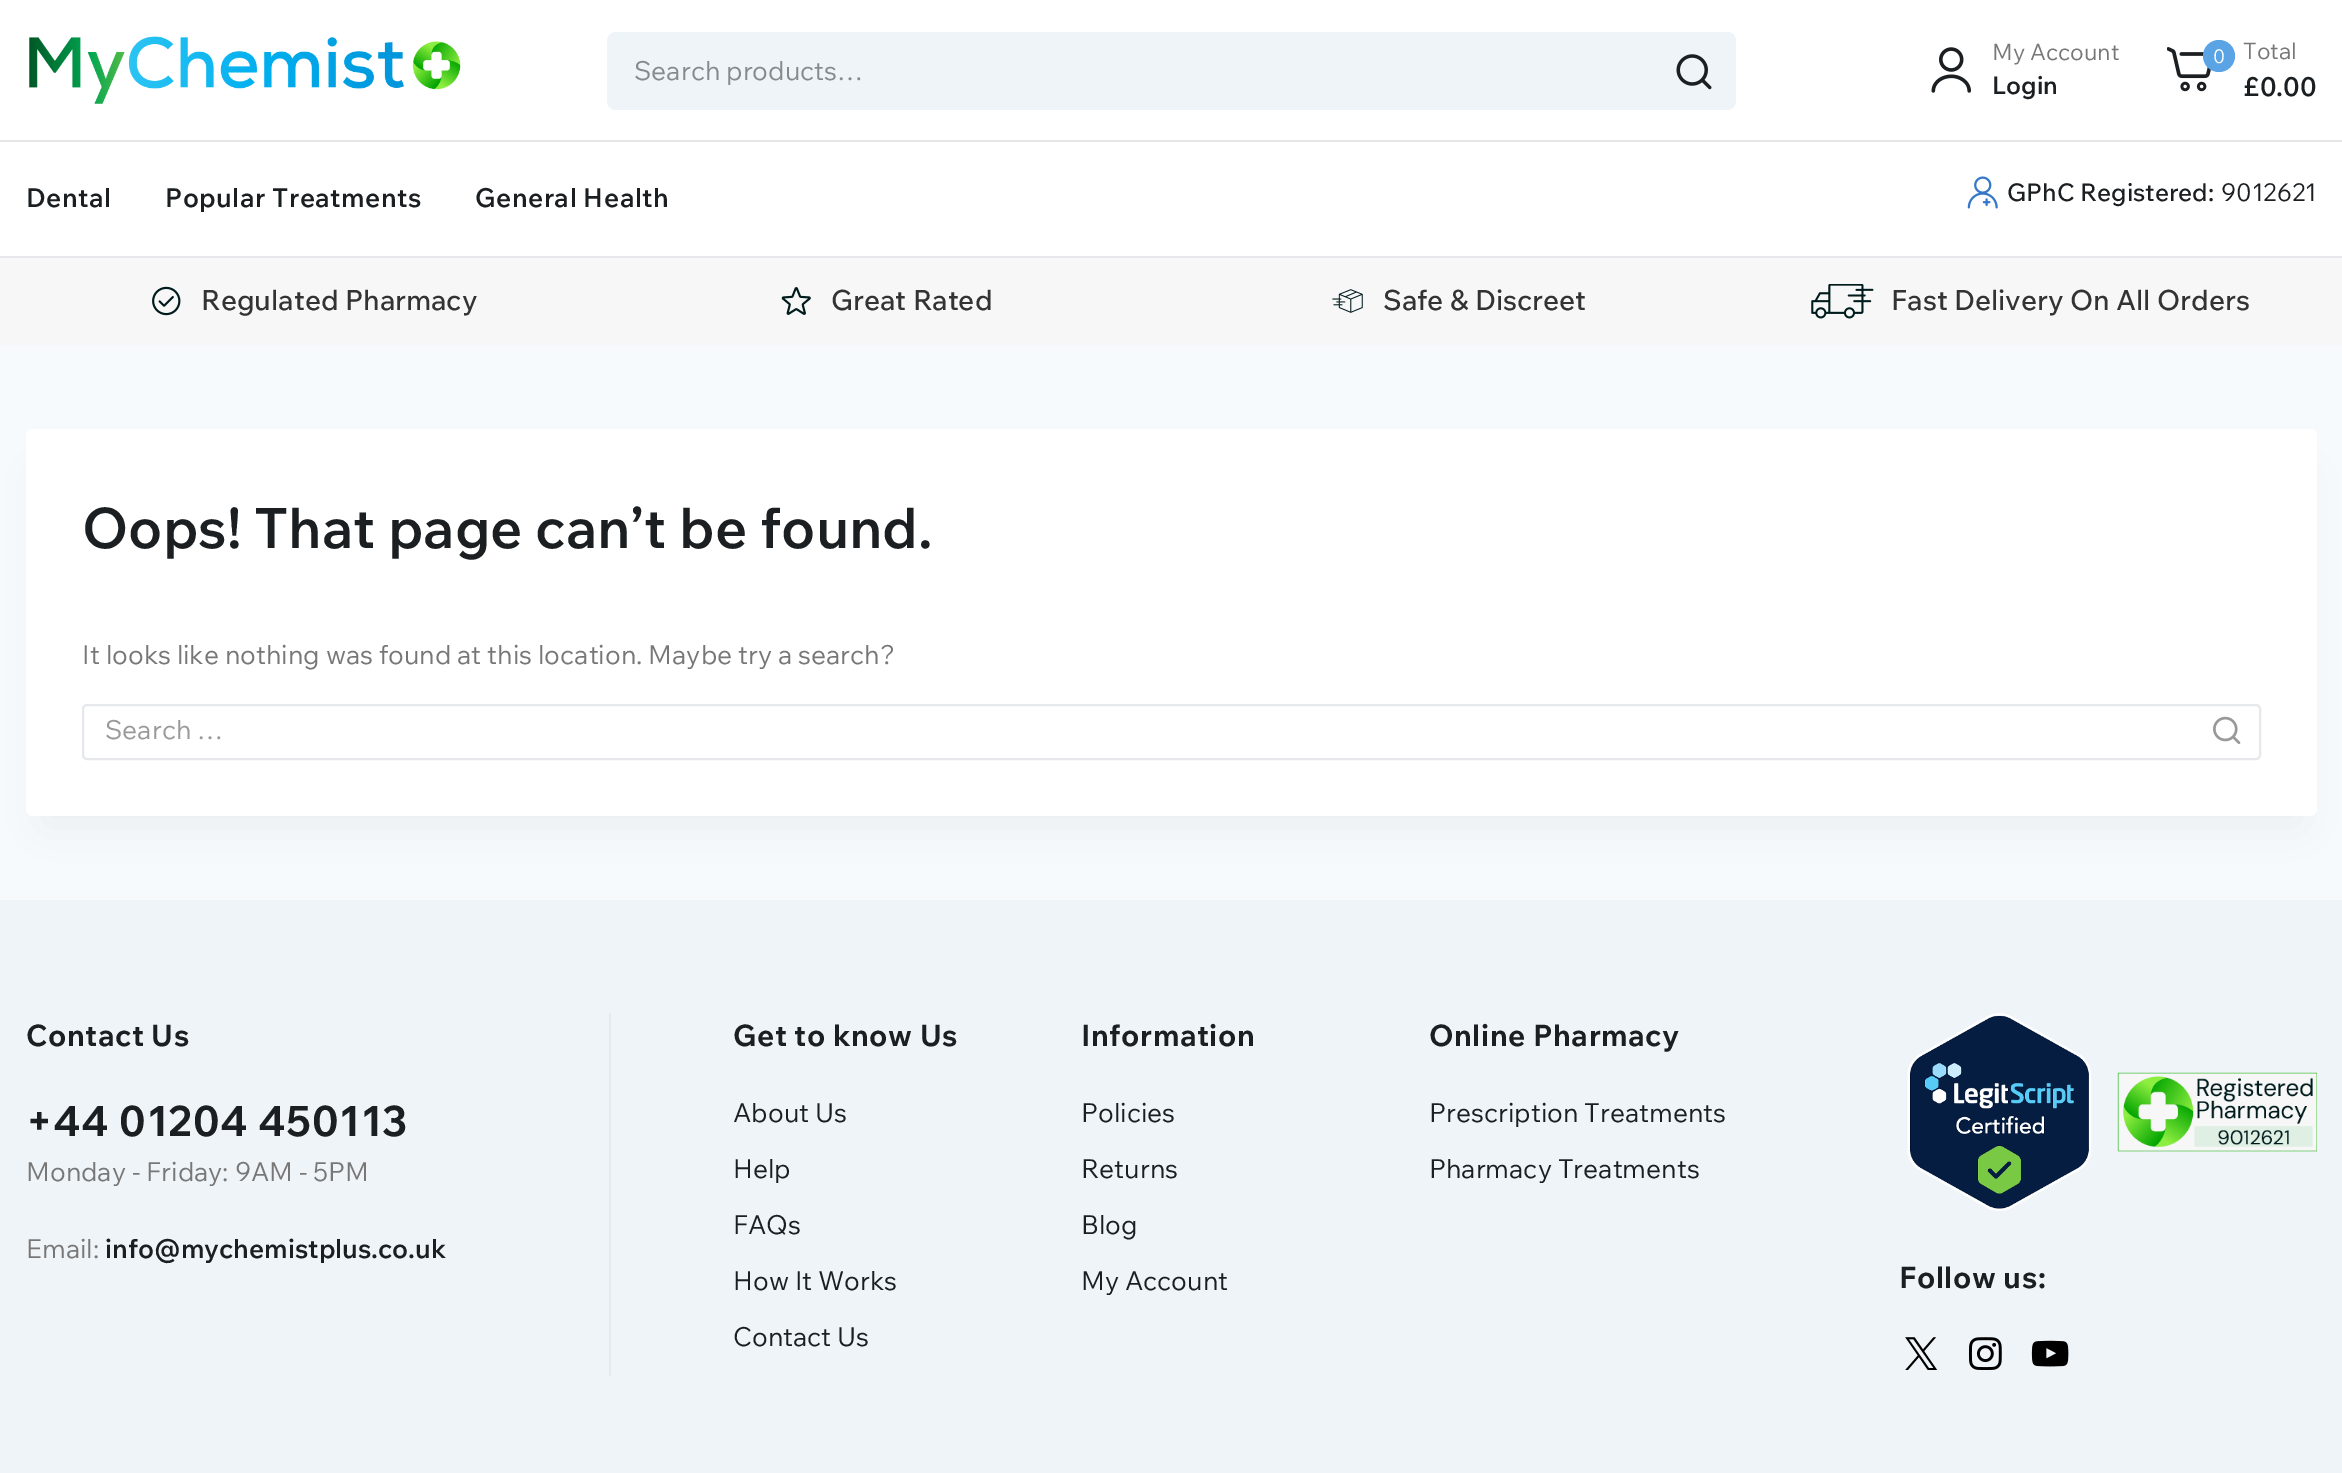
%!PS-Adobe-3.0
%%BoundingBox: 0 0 2342 1473
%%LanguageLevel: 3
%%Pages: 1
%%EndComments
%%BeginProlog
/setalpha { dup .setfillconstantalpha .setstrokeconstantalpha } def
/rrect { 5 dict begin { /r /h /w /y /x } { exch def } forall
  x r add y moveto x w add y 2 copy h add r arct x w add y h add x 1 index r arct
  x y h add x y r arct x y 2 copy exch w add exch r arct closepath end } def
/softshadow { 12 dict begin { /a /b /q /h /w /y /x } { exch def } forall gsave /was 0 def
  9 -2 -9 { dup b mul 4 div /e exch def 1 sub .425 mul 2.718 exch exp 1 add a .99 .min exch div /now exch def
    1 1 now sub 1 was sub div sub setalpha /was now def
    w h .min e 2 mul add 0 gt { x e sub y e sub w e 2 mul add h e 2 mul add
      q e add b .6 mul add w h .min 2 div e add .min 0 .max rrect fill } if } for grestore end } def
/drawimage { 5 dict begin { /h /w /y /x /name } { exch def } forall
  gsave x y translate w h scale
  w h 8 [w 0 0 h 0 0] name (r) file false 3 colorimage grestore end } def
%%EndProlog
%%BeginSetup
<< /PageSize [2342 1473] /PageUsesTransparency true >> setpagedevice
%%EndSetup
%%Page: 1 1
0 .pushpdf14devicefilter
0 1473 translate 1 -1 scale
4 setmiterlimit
0.969 0.98 0.988 setrgbcolor
0 0 2342 1473 rectfill
1 setgray
0 0 2342 256 rectfill
0.902 setgray
0 140 2342 2 rectfill
(images/1.raw) 29 36 432 68 drawimage
0.937 0.957 0.973 setrgbcolor
607 32 1129 78 9 rrect fill
(images/2.raw) 1676 54 36 36 drawimage
(images/3.raw) 1931 47 40 46 drawimage
(images/4.raw) 2167 47 44 45 drawimage
0.353 0.643 0.898 setrgbcolor
newpath 2219 56 16 0 360 arc closepath fill
0.902 0.91 0.922 setrgbcolor
0 256 2342 2 rectfill
(images/5.raw) 1967 176 31 33 drawimage
0.973 0.969 0.969 setrgbcolor
0 258 2342 87 rectfill
(images/6.raw) 152 286 29 30 drawimage
(images/7.raw) 781 287 30 28 drawimage
(images/8.raw) 1332 289 31 24 drawimage
(images/9.raw) 1811 284 63 35 drawimage
0 setgray
44 473 2256 351 0 22 0.05 softshadow
1 setgray
26 429 2291 387 7 rrect fill
0.902 0.91 0.922 setrgbcolor
2 setlinewidth
83 705 2177 54 4 rrect stroke
(images/10.raw) 2213 716 28 28 drawimage
0.937 0.957 0.973 setrgbcolor
0 900 2342 573 rectfill
0.902 0.91 0.922 setrgbcolor
609 1013 2 363 rectfill
(images/11.raw) 1907 1013 185 198 drawimage
(images/12.raw) 2117 1072 200 80 drawimage
(images/13.raw) 1905 1337 33 33 drawimage
(images/14.raw) 1968 1337 34 33 drawimage
(images/15.raw) 2031 1340 38 27 drawimage
/WixMadeforText-Regular [26.25 0 0 -26.25 0 0] selectfont
0.522 0.541 0.553 setrgbcolor
634 80 moveto (Search products…) show
/WixMadeforText-Regular [22.75 0 0 -22.75 0 0] selectfont
0.467 setgray
1992 60 moveto (My Account) show
/WixMadeforText-SemiBold [24.5 0 0 -24.5 0 0] selectfont
0.106 0.122 0.133 setrgbcolor
1992 94 moveto (Login) show
/WixMadeforText-Regular [19 0 0 -19 0 0] selectfont
1 setgray
2213 63 moveto (0) show
/WixMadeforText-Regular [22.75 0 0 -22.75 0 0] selectfont
0.467 setgray
2243 59 moveto (Total) show
/WixMadeforText-SemiBold [26.25 0 0 -26.25 0 0] selectfont
0.106 0.122 0.133 setrgbcolor
2243 96 moveto (£0.00) show
26 207 moveto 0.5 0 (Dental) ashow
165 207 moveto 0.5 0 (Popular Treatments) ashow
475 207 moveto 0.5 0 (General Health) ashow
/WixMadeforText-Medium [24.5 0 0 -24.5 0 0] selectfont
2007 201 moveto (GPhC Registered:) show
/WixMadeforText-Regular [24.5 0 0 -24.5 0 0] selectfont
2221 201 moveto (9012621) show
/WixMadeforText-Medium [28 0 0 -28 0 0] selectfont
0.2 setgray
201 310 moveto (Regulated Pharmacy) show
831 310 moveto (Great Rated) show
1383 310 moveto (Safe & Discreet) show
1891 310 moveto (Fast Delivery On All Orders) show
/WixMadeforText-SemiBold [56 0 0 -56 0 0] selectfont
0.106 0.122 0.133 setrgbcolor
82 548 moveto (Oops! That page can’t be found.) show
/WixMadeforText-Regular [26.25 0 0 -26.25 0 0] selectfont
0.467 setgray
82 664 moveto (It looks like nothing was found at this location. Maybe try a search?) show
0.6 setgray
105 739 moveto (Search …) show
/WixMadeforText-Bold [29.75 0 0 -29.75 0 0] selectfont
0.106 0.122 0.133 setrgbcolor
26 1046 moveto 0.5 0 (Contact Us) ashow
/WixMadeforText-Bold [42 0 0 -42 0 0] selectfont
26 1136 moveto 0.5 0 (+44 01204 450113) ashow
/WixMadeforText-Regular [26.25 0 0 -26.25 0 0] selectfont
0.467 setgray
26 1181 moveto (Monday - Friday: 9AM - 5PM) show
26 1258 moveto (Email:) show
/WixMadeforText-SemiBold [26.25 0 0 -26.25 0 0] selectfont
0.106 0.122 0.133 setrgbcolor
105 1258 moveto (info@mychemistplus.co.uk) show
/WixMadeforText-Bold [29.75 0 0 -29.75 0 0] selectfont
733 1046 moveto 0.5 0 (Get to know Us) ashow
/WixMadeforText-Regular [26.25 0 0 -26.25 0 0] selectfont
733 1122 moveto (About Us) show
733 1178 moveto (Help) show
733 1234 moveto (FAQs) show
733 1290 moveto (How It Works) show
733 1346 moveto (Contact Us) show
/WixMadeforText-Bold [29.75 0 0 -29.75 0 0] selectfont
1081 1046 moveto 0.5 0 (Information) ashow
/WixMadeforText-Regular [26.25 0 0 -26.25 0 0] selectfont
1081 1122 moveto (Policies) show
1081 1178 moveto (Returns) show
1081 1234 moveto (Blog) show
1081 1290 moveto (My Account) show
/WixMadeforText-Bold [29.75 0 0 -29.75 0 0] selectfont
1429 1046 moveto 0.5 0 (Online Pharmacy) ashow
/WixMadeforText-Regular [26.25 0 0 -26.25 0 0] selectfont
1429 1122 moveto (Prescription Treatments) show
1429 1178 moveto (Pharmacy Treatments) show
/WixMadeforText-Bold [29.75 0 0 -29.75 0 0] selectfont
1899 1288 moveto 0.5 0 (Follow us:) ashow
.poppdf14devicefilter showpage
%%EOF
